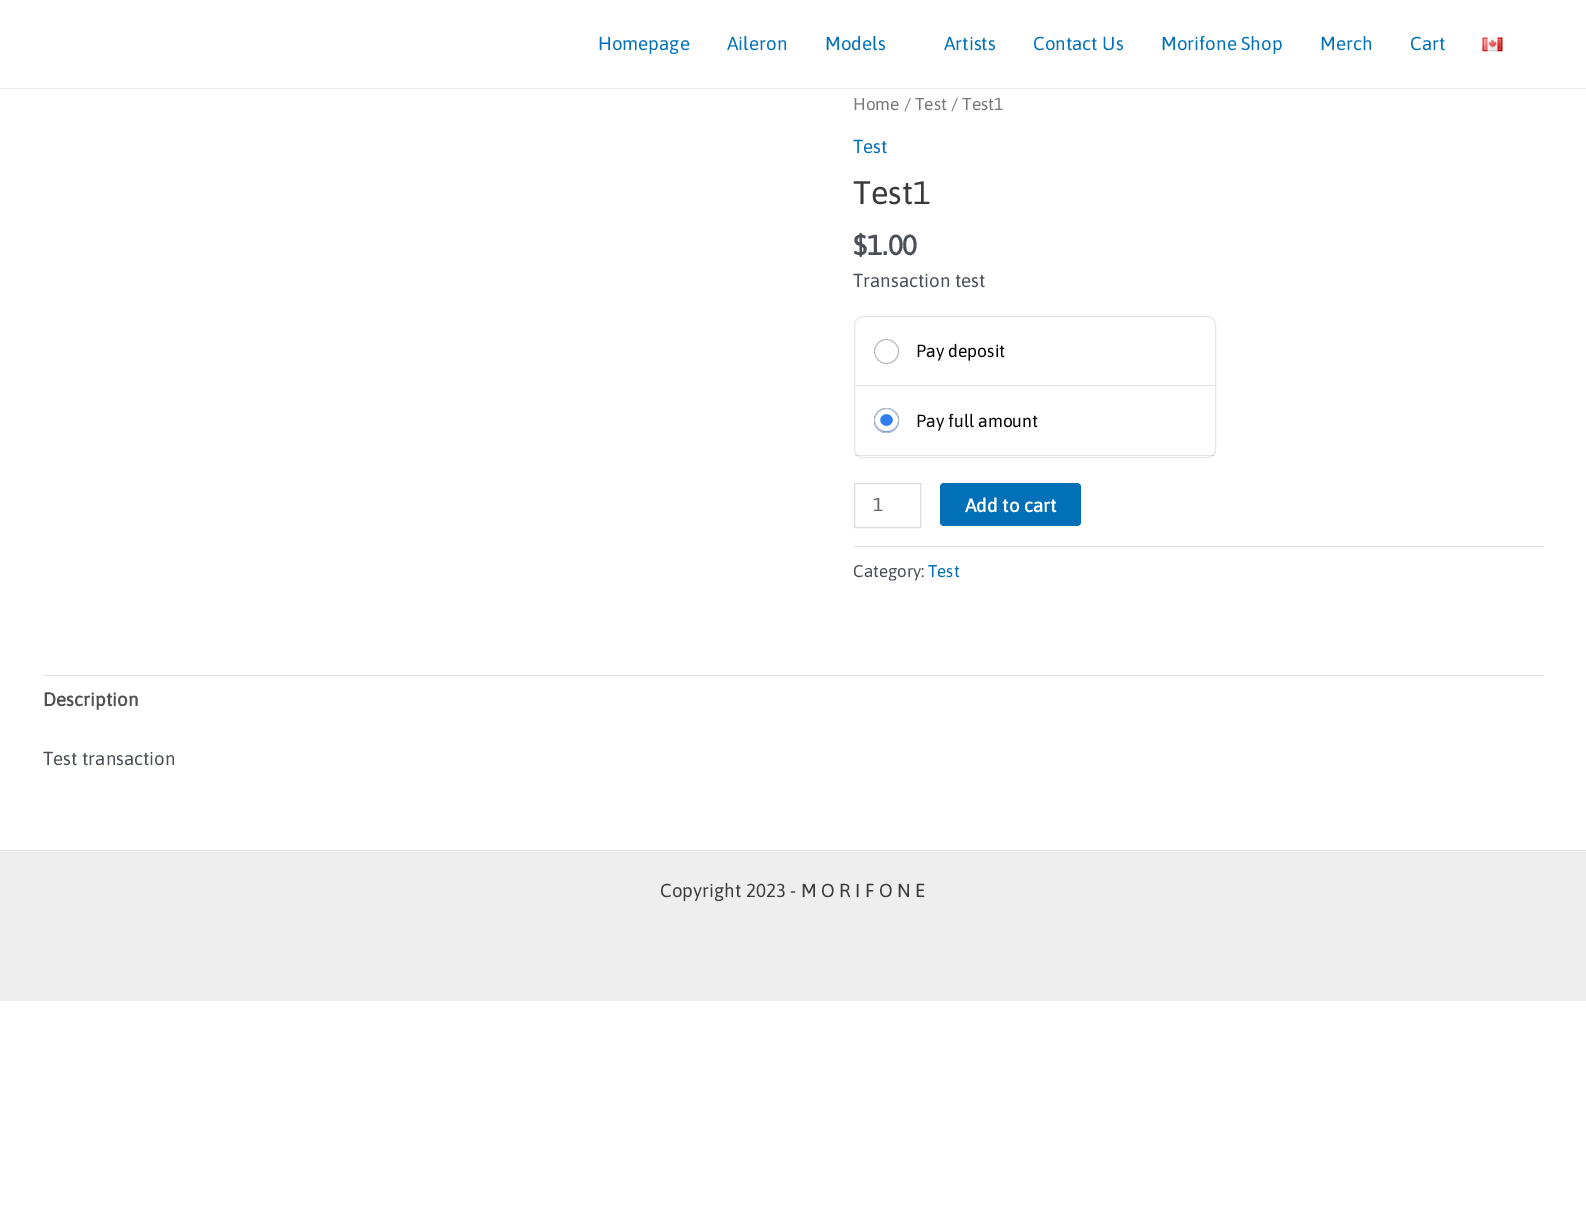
%!PS-Adobe-3.0
%%BoundingBox: 0 0 1586 1210
%%LanguageLevel: 3
%%Pages: 1
%%EndComments
%%BeginProlog
/setalpha { dup .setfillconstantalpha .setstrokeconstantalpha } def
/rrect { 5 dict begin { /r /h /w /y /x } { exch def } forall
  x r add y moveto x w add y 2 copy h add r arct x w add y h add x 1 index r arct
  x y h add x y r arct x y 2 copy exch w add exch r arct closepath end } def
/drawimage { 5 dict begin { /h /w /y /x /name } { exch def } forall
  gsave x y translate w h scale
  w h 8 [w 0 0 h 0 0] name (r) file false 3 colorimage grestore end } def
%%EndProlog
%%BeginSetup
<< /PageSize [1586 1210] /PageUsesTransparency true >> setpagedevice
%%EndSetup
%%Page: 1 1
0 .pushpdf14devicefilter
0 1210 translate 1 -1 scale
4 setmiterlimit
1 setgray
0 0 1586 1210 rectfill
0.918 setgray
0 88 1586 1 rectfill
(images/1.raw) 1482 37 21 15 drawimage
0.902 setgray
854.5 316.5 361 141 8.5 rrect stroke
0.886 setgray
855 385 360 1 rectfill
0.749 setgray
newpath 886.5 351.5 12 0 360 arc closepath stroke
0.1 setalpha
0 setgray
855 455 360 1 rectfill
1 setalpha
0.184 0.502 0.929 setrgbcolor
newpath 886.5 420.5 12.5 0 360 arc closepath fill
1 setgray
5 setlinewidth
877.5 411.5 18 17 8.5 rrect stroke
0.749 setgray
1 setlinewidth
newpath 886.5 420.5 12 0 360 arc closepath stroke
0.867 setgray
854.5 483.5 66 44 rectstroke
0.004 0.439 0.725 setrgbcolor
940 483 141 43 4 rrect fill
0.867 setgray
854 546 690 1 rectfill
44 675 1500 1 rectfill
0.933 setgray
0 851 1586 150 rectfill
0.898 setgray
0 850 1586 1 rectfill
/Asap-Regular [18.75 0 0 -18.75 0 0] selectfont
0.004 0.439 0.725 setrgbcolor
598 50 moveto (Homepage) show
727 50 moveto (Aileron) show
825 50 moveto (Models) show
944 50 moveto (Artists) show
1033 50 moveto (Contact Us) show
1161 50 moveto (Morifone Shop) show
1320 50 moveto (Merch) show
1410 50 moveto (Cart) show
/Asap-Regular [17.25 0 0 -17.25 0 0] selectfont
0.467 setgray
853 110 moveto (Home / Test / Test1) show
/Asap-Regular [18.75 0 0 -18.75 0 0] selectfont
0.004 0.439 0.725 setrgbcolor
853 153 moveto (Test) show
/Asap-Regular [32.5 0 0 -32.5 0 0] selectfont
0.227 setgray
853 204 moveto (Test1) show
/Asap-Bold [28 0 0 -28 0 0] selectfont
0.294 0.31 0.345 setrgbcolor
853 255 moveto ($1.00) show
/Asap-Regular [18.75 0 0 -18.75 0 0] selectfont
853 287 moveto (Transaction test) show
/Asap-Regular [17.5 0 0 -17.5 0 0] selectfont
0 setgray
916 357 moveto (Pay deposit) show
916 427 moveto (Pay full amount) show
/Asap-Regular [18.75 0 0 -18.75 0 0] selectfont
0.4 setgray
873 511 moveto (1) show
/Asap-Bold [18.75 0 0 -18.75 0 0] selectfont
1 setgray
965 512 moveto (Add to cart) show
/Asap-Regular [17 0 0 -17 0 0] selectfont
0.294 0.31 0.345 setrgbcolor
853 577 moveto (Category:) show
0.004 0.439 0.725 setrgbcolor
928 577 moveto (Test) show
/Asap-Bold [18.75 0 0 -18.75 0 0] selectfont
0.318 setgray
43 706 moveto (Description) show
/Asap-Regular [18.75 0 0 -18.75 0 0] selectfont
0.294 0.31 0.345 setrgbcolor
43 765 moveto (Test transaction) show
0.227 setgray
660 897 moveto (Copyright 2023 - M O R I F O N E) show
.poppdf14devicefilter showpage
%%EOF
